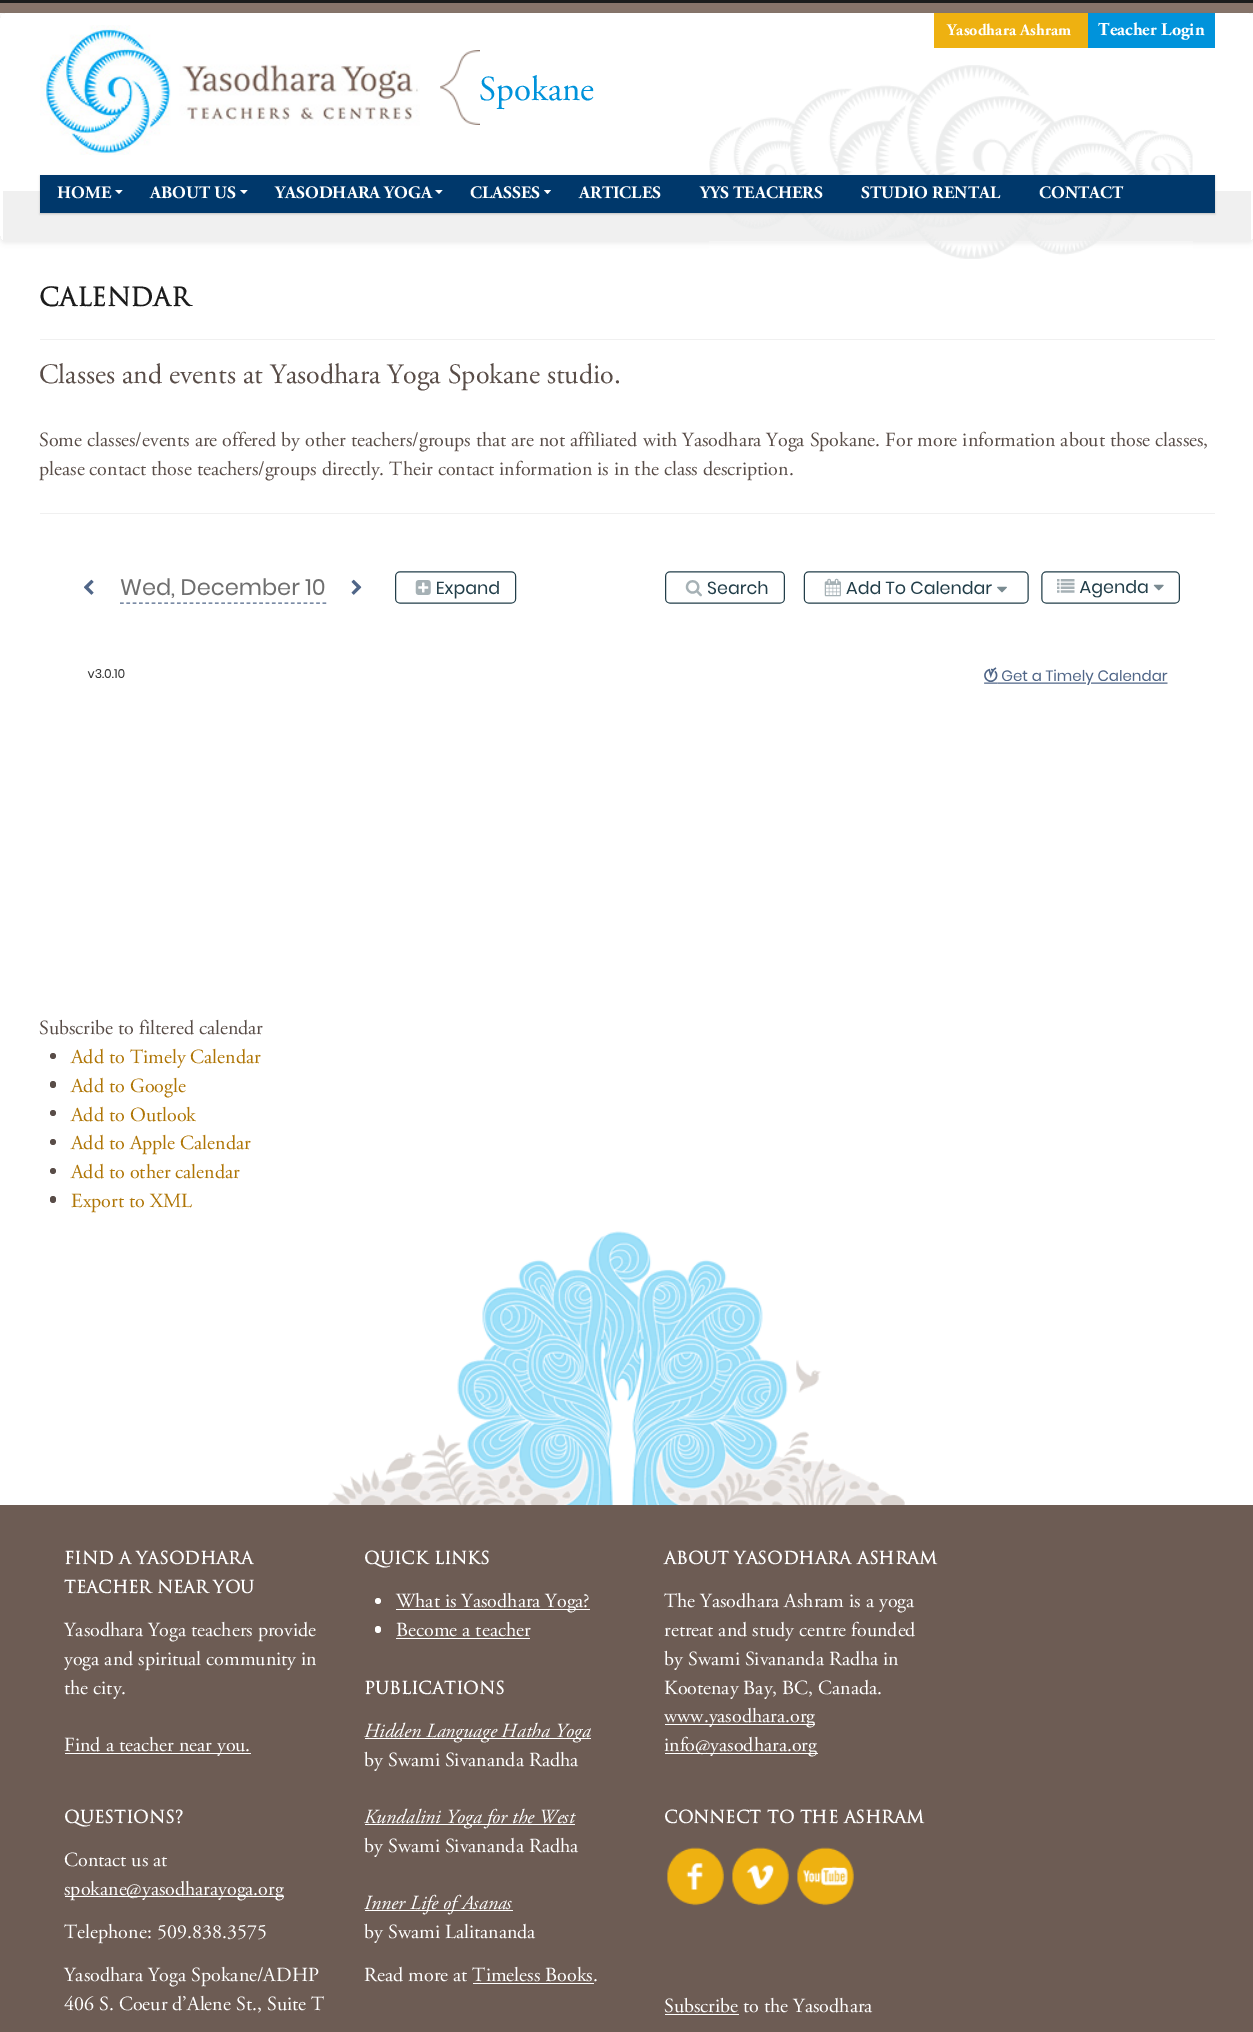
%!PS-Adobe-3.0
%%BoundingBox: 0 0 1253 2032
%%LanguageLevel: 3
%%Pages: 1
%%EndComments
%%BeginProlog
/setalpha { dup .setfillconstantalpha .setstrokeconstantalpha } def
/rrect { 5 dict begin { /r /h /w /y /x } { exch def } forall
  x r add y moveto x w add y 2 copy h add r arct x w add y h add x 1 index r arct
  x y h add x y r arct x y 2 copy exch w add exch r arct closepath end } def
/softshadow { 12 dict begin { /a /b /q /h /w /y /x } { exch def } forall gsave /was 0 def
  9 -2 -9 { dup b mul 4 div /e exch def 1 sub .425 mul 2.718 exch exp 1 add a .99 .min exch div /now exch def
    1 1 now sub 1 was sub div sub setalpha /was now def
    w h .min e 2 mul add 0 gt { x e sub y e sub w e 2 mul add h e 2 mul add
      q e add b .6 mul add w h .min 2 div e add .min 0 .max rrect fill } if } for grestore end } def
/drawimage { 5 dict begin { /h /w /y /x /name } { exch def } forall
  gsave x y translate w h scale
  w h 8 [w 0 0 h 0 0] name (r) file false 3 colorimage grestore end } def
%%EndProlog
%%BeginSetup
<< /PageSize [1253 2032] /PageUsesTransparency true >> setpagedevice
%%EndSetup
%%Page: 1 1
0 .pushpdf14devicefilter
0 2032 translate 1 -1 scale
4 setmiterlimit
1 setgray
0 0 1253 2032 rectfill
0.11 setgray
0 0 1253 3 rectfill
0.533 0.455 0.416 setrgbcolor
0 3 1253 10 rectfill
gsave
newpath 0 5 moveto 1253 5 lineto 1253 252 lineto 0 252 lineto closepath 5 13 moveto 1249 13 lineto 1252 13 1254 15 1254 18 curveto 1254 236 lineto 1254 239 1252 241 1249 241 curveto 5 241 lineto 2 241 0 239 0 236 curveto 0 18 lineto 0 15 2 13 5 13 curveto closepath eoclip newpath
0 setgray
0 14 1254 229 5 2.5 0.07 softshadow
grestore
0.941 setgray
3 191 1248 50 rectfill
(images/1.raw) 40 25 380 130 drawimage
0.933 0.694 0.067 setrgbcolor
934 13 154 35 rectfill
0 0.576 0.859 setrgbcolor
1088 13 127 35 rectfill
(images/2.raw) 440 50 40 75 drawimage
(images/3.raw) 709 65 484 194 drawimage
0 setgray
40 176 1175 38 0 1 0.2 softshadow
0 0.22 0.42 setrgbcolor
40 175 1175 38 rectfill
1 setgray
newpath 115 190 moveto 122.5 190 lineto 119 194 lineto closepath fill
newpath 240 190 moveto 247.5 190 lineto 244 194 lineto closepath fill
newpath 435 190 moveto 442.5 190 lineto 439 194 lineto closepath fill
newpath 544 190 moveto 551 190 lineto 547.5 194 lineto closepath fill
(images/4.raw) 328 1231 577 274 drawimage
0.941 setgray
40 339 1175 1 rectfill
40 513 1175 1 rectfill
(images/5.raw) 84 571 1096 114 drawimage
0.349 0.302 0.282 setrgbcolor
newpath 53 1056 3 0 360 arc closepath fill
50 1081 6 7 3 rrect fill
newpath 53 1113 3 0 360 arc closepath fill
newpath 53 1142 3 0 360 arc closepath fill
newpath 53 1171 3 0 360 arc closepath fill
50 1196 6 7 3 rrect fill
0.427 0.361 0.329 setrgbcolor
0 1505 1253 527 rectfill
1 setgray
65 1753 186 1 rectfill
65 1896 219 1 rectfill
newpath 378 1601 3 0 360 arc closepath fill
396 1609 194 1 rectfill
375 1626 6 7 3 rrect fill
396 1638 134 1 rectfill
365 1738 226 1 rectfill
365 1824 210 1 rectfill
365 1910 148 1 rectfill
473 1983 121 1 rectfill
665 1724 150 1 rectfill
665 1753 153 1 rectfill
(images/6.raw) 667 1847 57 59 drawimage
(images/7.raw) 732 1847 57 59 drawimage
(images/8.raw) 797 1847 57 59 drawimage
665 2014 74 1 rectfill
/AdobeGaramond-Bold [16.25 0 0 -16.25 0 0] selectfont
947 35 moveto (Yasodhara Ashram) show
/AdobeGaramond-Bold [18 0 0 -18 0 0] selectfont
1098 35 moveto (Teacher Login) show
/AdobeGaramond-Regular [35 0 0 -35 0 0] selectfont
0 0.576 0.859 setrgbcolor
479 100 moveto (Spokane) show
/AdobeGaramond-Bold [17.5 0 0 -17.5 0 0] selectfont
1 setgray
57 198 moveto (HOME) show
150 198 moveto (ABOUT US) show
275 198 moveto (YASODHARA YOGA) show
470 198 moveto (CLASSES) show
579 198 moveto (ARTICLES) show
700 198 moveto (YYS TEACHERS) show
861 198 moveto (STUDIO RENTAL) show
1039 198 moveto (CONTACT) show
/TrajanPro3-Bold [25 0 0 -25 0 0] selectfont
0.11 setgray
39 306 moveto (CALENDAR) show
/AdobeGaramond-Regular [28 0 0 -28 0 0] selectfont
0.349 0.302 0.282 setrgbcolor
39 383 moveto (Classes and events at Yasodhara Yoga Spokane studio.) show
/AdobeGaramond-Regular [20 0 0 -20 0 0] selectfont
39 446 moveto (Some classes/events are offered by other teachers/groups that are not affiliated with Yasodhara Yoga Spokane. For more information about those classes,) show
39 475 moveto (please contact those teachers/groups directly. Their contact information is in the class description.) show
39 1034 moveto (Subscribe to filtered calendar) show
0.686 0.459 0.02 setrgbcolor
71 1063 moveto (Add to Timely Calendar) show
71 1092 moveto (Add to Google) show
71 1121 moveto (Add to Outlook) show
71 1149 moveto (Add to Apple Calendar) show
71 1178 moveto (Add to other calendar) show
71 1207 moveto (Export to XML) show
/TrajanPro3-Bold [17 0 0 -17 0 0] selectfont
1 setgray
64 1564 moveto (FIND A YASODHARA) show
64 1593 moveto (TEACHER NEAR YOU) show
/AdobeGaramond-Regular [20 0 0 -20 0 0] selectfont
64 1636 moveto (Yasodhara Yoga teachers provide) show
64 1665 moveto (yoga and spiritual community in) show
64 1694 moveto (the city.) show
64 1751 moveto (Find a teacher near you.) show
/TrajanPro3-Bold [17 0 0 -17 0 0] selectfont
64 1823 moveto (QUESTIONS?) show
/AdobeGaramond-Regular [20 0 0 -20 0 0] selectfont
64 1866 moveto (Contact us at) show
64 1895 moveto (spokane@yasodharayoga.org) show
64 1938 moveto (Telephone: 509.838.3575) show
64 1981 moveto (Yasodhara Yoga Spokane/ADHP) show
64 2010 moveto (406 S. Coeur d’Alene St., Suite T) show
/TrajanPro3-Bold [17 0 0 -17 0 0] selectfont
364 1564 moveto (QUICK LINKS) show
/AdobeGaramond-Regular [20 0 0 -20 0 0] selectfont
396 1607 moveto (What is Yasodhara Yoga?) show
396 1636 moveto (Become a teacher) show
/TrajanPro3-Bold [17 0 0 -17 0 0] selectfont
364 1694 moveto (PUBLICATIONS) show
/AdobeGaramond-Italic [20 0 0 -20 0 0] selectfont
364 1737 moveto (Hidden Language Hatha Yoga) show
/AdobeGaramond-Regular [20 0 0 -20 0 0] selectfont
364 1766 moveto (by Swami Sivananda Radha) show
/AdobeGaramond-Italic [20 0 0 -20 0 0] selectfont
364 1823 moveto (Kundalini Yoga for the West) show
/AdobeGaramond-Regular [20 0 0 -20 0 0] selectfont
364 1852 moveto (by Swami Sivananda Radha) show
/AdobeGaramond-Italic [20 0 0 -20 0 0] selectfont
364 1909 moveto (Inner Life of Asanas) show
/AdobeGaramond-Regular [20 0 0 -20 0 0] selectfont
364 1938 moveto (by Swami Lalitananda) show
364 1981 moveto (Read more at Timeless Books.) show
/TrajanPro3-Bold [17 0 0 -17 0 0] selectfont
664 1564 moveto (ABOUT YASODHARA ASHRAM) show
/AdobeGaramond-Regular [20 0 0 -20 0 0] selectfont
664 1607 moveto (The Yasodhara Ashram is a yoga) show
664 1636 moveto (retreat and study centre founded) show
664 1665 moveto (by Swami Sivananda Radha in) show
664 1694 moveto (Kootenay Bay, BC, Canada.) show
664 1722 moveto (www.yasodhara.org) show
664 1751 moveto (info@yasodhara.org) show
/TrajanPro3-Bold [17 0 0 -17 0 0] selectfont
664 1823 moveto (CONNECT TO THE ASHRAM) show
/AdobeGaramond-Regular [20 0 0 -20 0 0] selectfont
664 2012 moveto (Subscribe to the Yasodhara) show
.poppdf14devicefilter showpage
%%EOF
